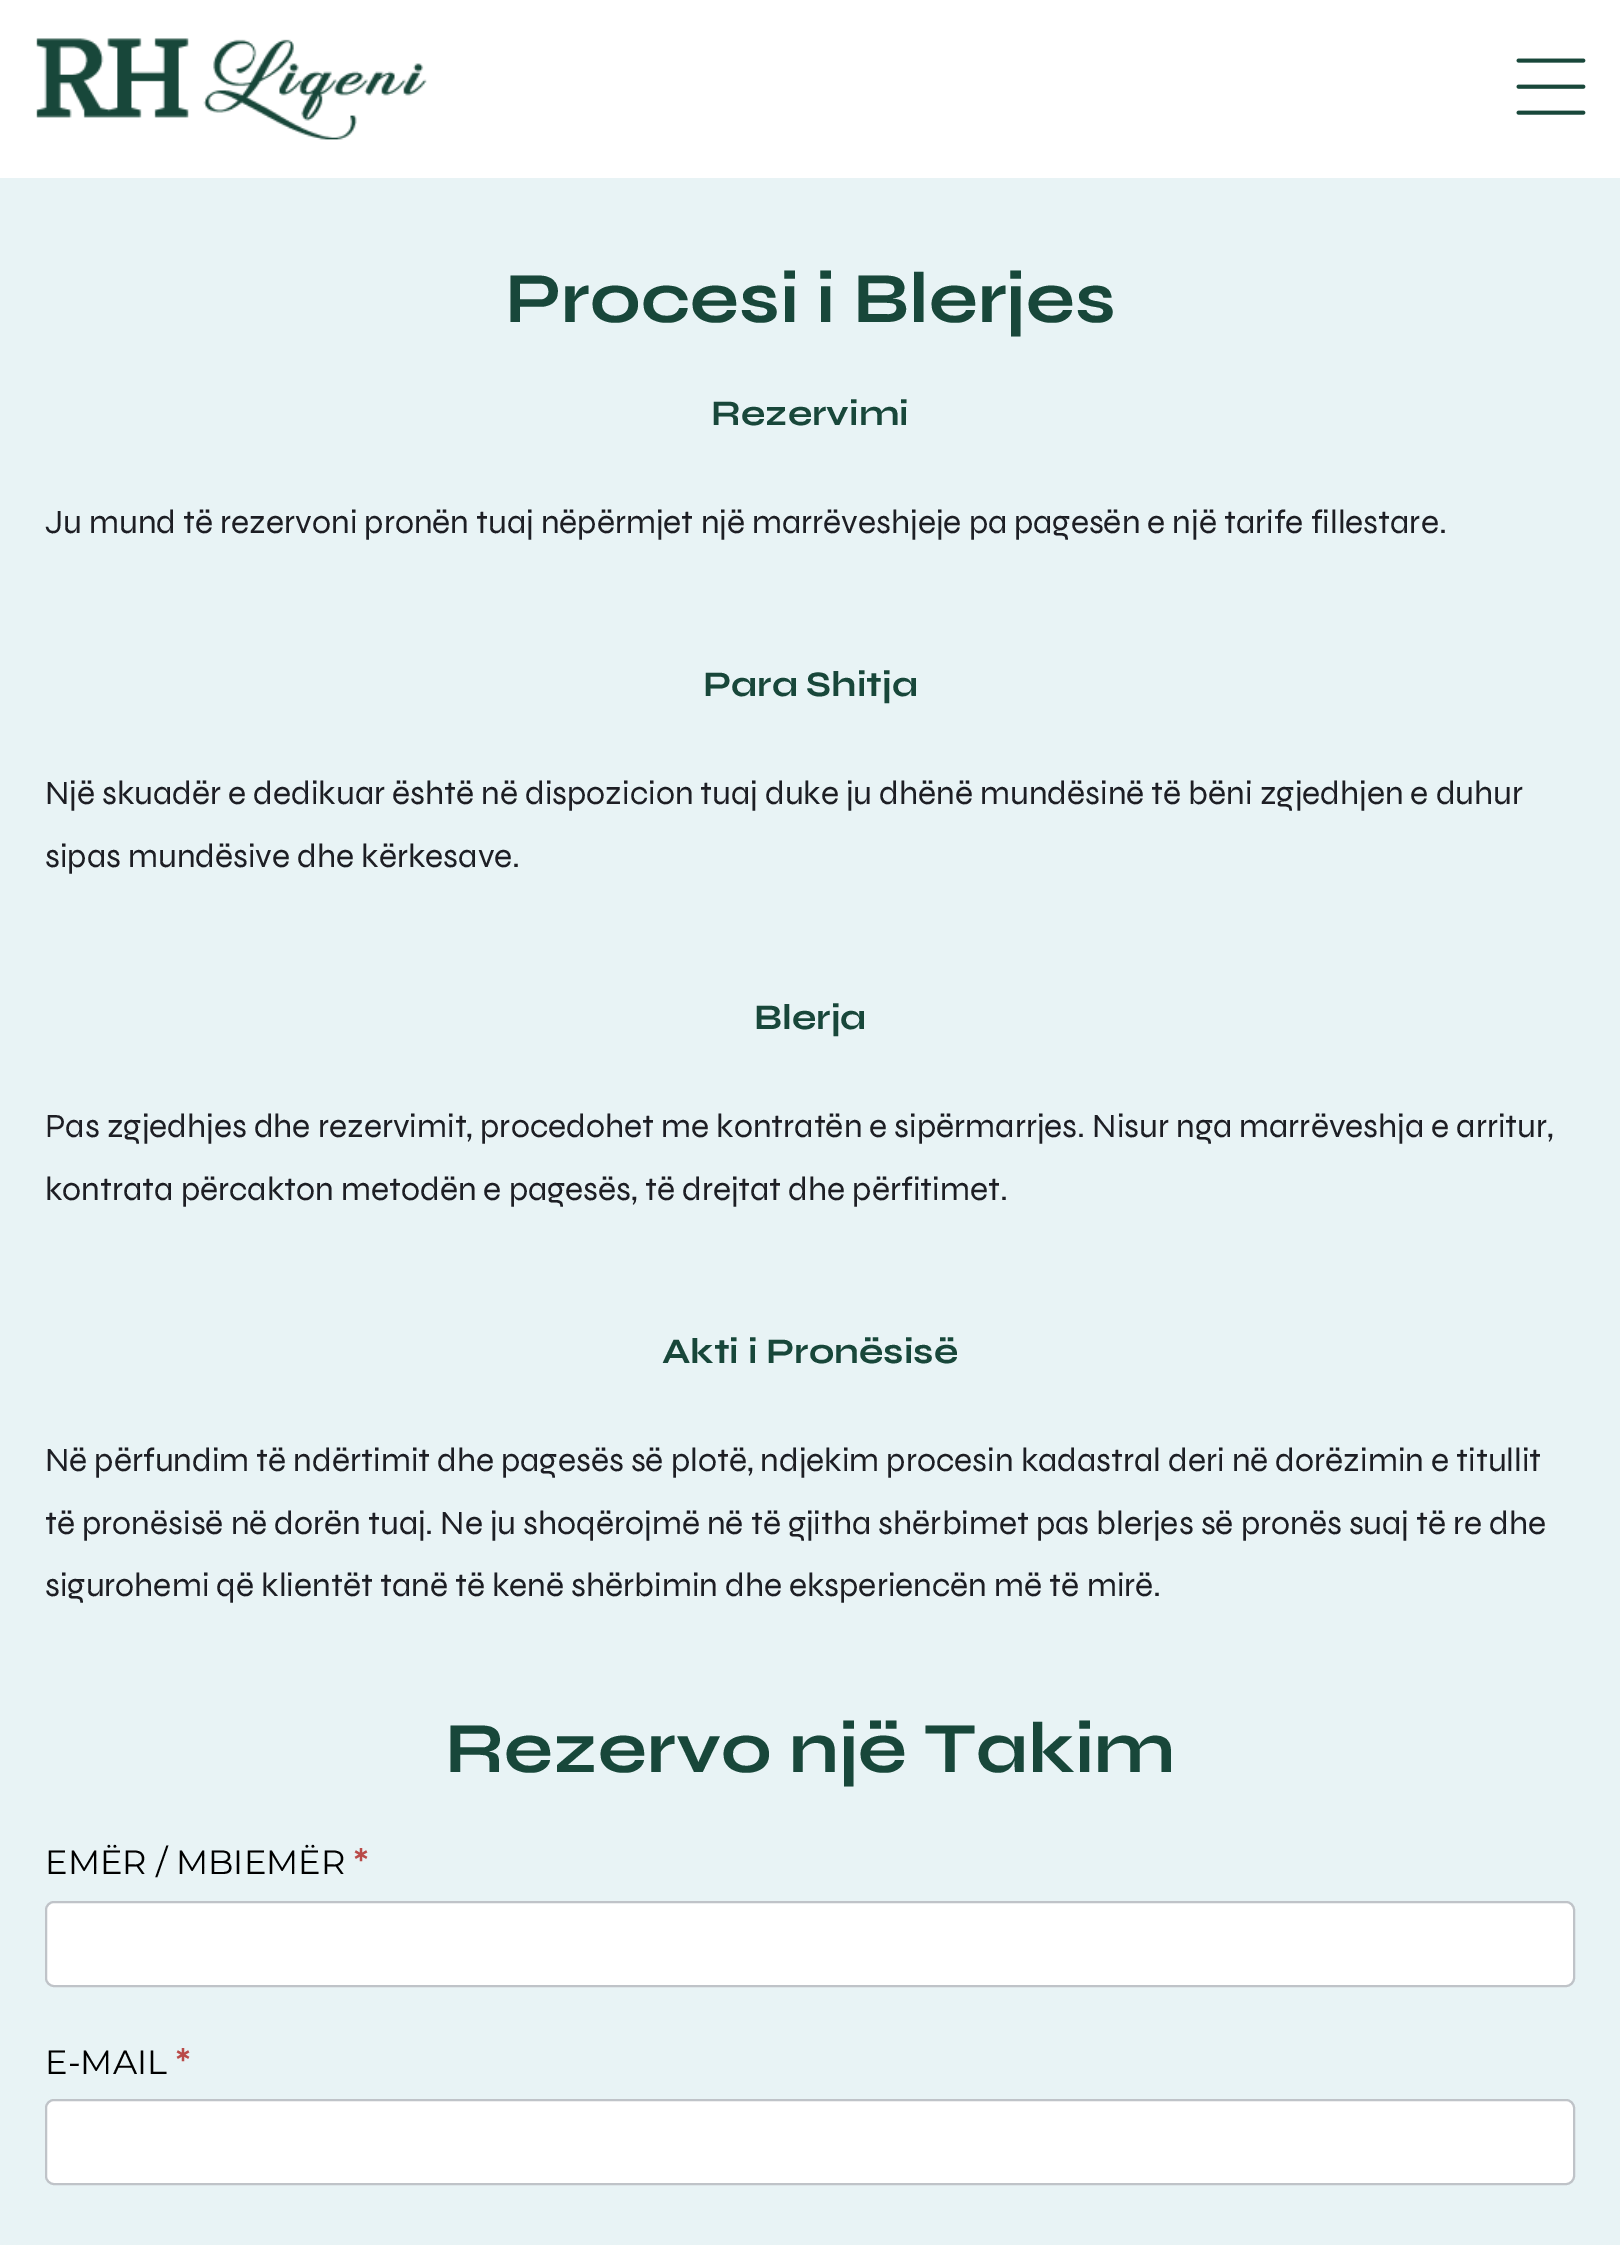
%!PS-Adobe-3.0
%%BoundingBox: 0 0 1620 2245
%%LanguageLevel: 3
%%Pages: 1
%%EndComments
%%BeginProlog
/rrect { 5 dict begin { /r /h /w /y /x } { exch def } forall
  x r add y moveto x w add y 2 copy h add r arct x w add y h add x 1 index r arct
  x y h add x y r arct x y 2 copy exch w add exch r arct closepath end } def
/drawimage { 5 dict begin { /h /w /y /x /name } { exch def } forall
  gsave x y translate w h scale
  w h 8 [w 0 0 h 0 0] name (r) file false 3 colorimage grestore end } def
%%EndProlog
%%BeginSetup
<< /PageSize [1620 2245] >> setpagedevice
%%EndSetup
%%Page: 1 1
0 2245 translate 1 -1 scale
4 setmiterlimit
0.91 0.953 0.961 setrgbcolor
0 0 1620 2245 rectfill
1 setgray
0 0 1620 178 rectfill
(images/1.raw) 36 38 391 102 drawimage
(images/2.raw) 1516 58 70 57 drawimage
46 1902 1528 84 8 rrect gsave fill grestore
0.749 0.765 0.784 setrgbcolor
2 setlinewidth
stroke
1 setgray
46 2100 1528 84 8 rrect gsave fill grestore
0.749 0.765 0.784 setrgbcolor
stroke
/Syne-Bold [72 0 0 -72 0 0] selectfont
0.094 0.278 0.227 setrgbcolor
505 322 moveto (Procesi i Blerjes) show
/Syne-Bold [36 0 0 -36 0 0] selectfont
711 425 moveto (Rezervimi) show
/Syne-Regular [33.75 0 0 -33.75 0 0] selectfont
0.114 0.118 0.141 setrgbcolor
45 533 moveto (Ju mund të rezervoni pronën tuaj nëpërmjet një marrëveshjeje pa pagesën e një tarife fillestare.) show
/Syne-Bold [36 0 0 -36 0 0] selectfont
0.094 0.278 0.227 setrgbcolor
703 696 moveto (Para Shitja) show
/Syne-Regular [33.75 0 0 -33.75 0 0] selectfont
0.114 0.118 0.141 setrgbcolor
45 804 moveto (Një skuadër e dedikuar është në dispozicion tuaj duke ju dhënë mundësinë të bëni zgjedhjen e duhur) show
45 867 moveto (sipas mundësive dhe kërkesave.) show
/Syne-Bold [36 0 0 -36 0 0] selectfont
0.094 0.278 0.227 setrgbcolor
754 1029 moveto (Blerja) show
/Syne-Regular [33.75 0 0 -33.75 0 0] selectfont
0.114 0.118 0.141 setrgbcolor
45 1137 moveto (Pas zgjedhjes dhe rezervimit, procedohet me kontratën e sipërmarrjes. Nisur nga marrëveshja e arritur,) show
45 1200 moveto (kontrata përcakton metodën e pagesës, të drejtat dhe përfitimet.) show
/Syne-Bold [36 0 0 -36 0 0] selectfont
0.094 0.278 0.227 setrgbcolor
662 1363 moveto (Akti i Pronësisë) show
/Syne-Regular [33.75 0 0 -33.75 0 0] selectfont
0.114 0.118 0.141 setrgbcolor
45 1471 moveto (Në përfundim të ndërtimit dhe pagesës së plotë, ndjekim procesin kadastral deri në dorëzimin e titullit) show
45 1534 moveto (të pronësisë në dorën tuaj. Ne ju shoqërojmë në të gjitha shërbimet pas blerjes së pronës suaj të re dhe) show
45 1596 moveto (sigurohemi që klientët tanë të kenë shërbimin dhe eksperiencën më të mirë.) show
/Syne-Bold [72 0 0 -72 0 0] selectfont
0.094 0.278 0.227 setrgbcolor
445 1772 moveto (Rezervo një Takim) show
/Montserrat-Thin [33.75 0 0 -33.75 0 0] selectfont
0 setgray
45 1874 moveto (EMËR / MBIEMËR) show
/Montserrat-Bold [33.75 0 0 -33.75 0 0] selectfont
0.725 0.29 0.282 setrgbcolor
354 1874 moveto (*) show
/Montserrat-Thin [33.75 0 0 -33.75 0 0] selectfont
0 setgray
45 2074 moveto (E-MAIL) show
/Montserrat-Bold [33.75 0 0 -33.75 0 0] selectfont
0.725 0.29 0.282 setrgbcolor
176 2074 moveto (*) show
showpage
%%EOF
